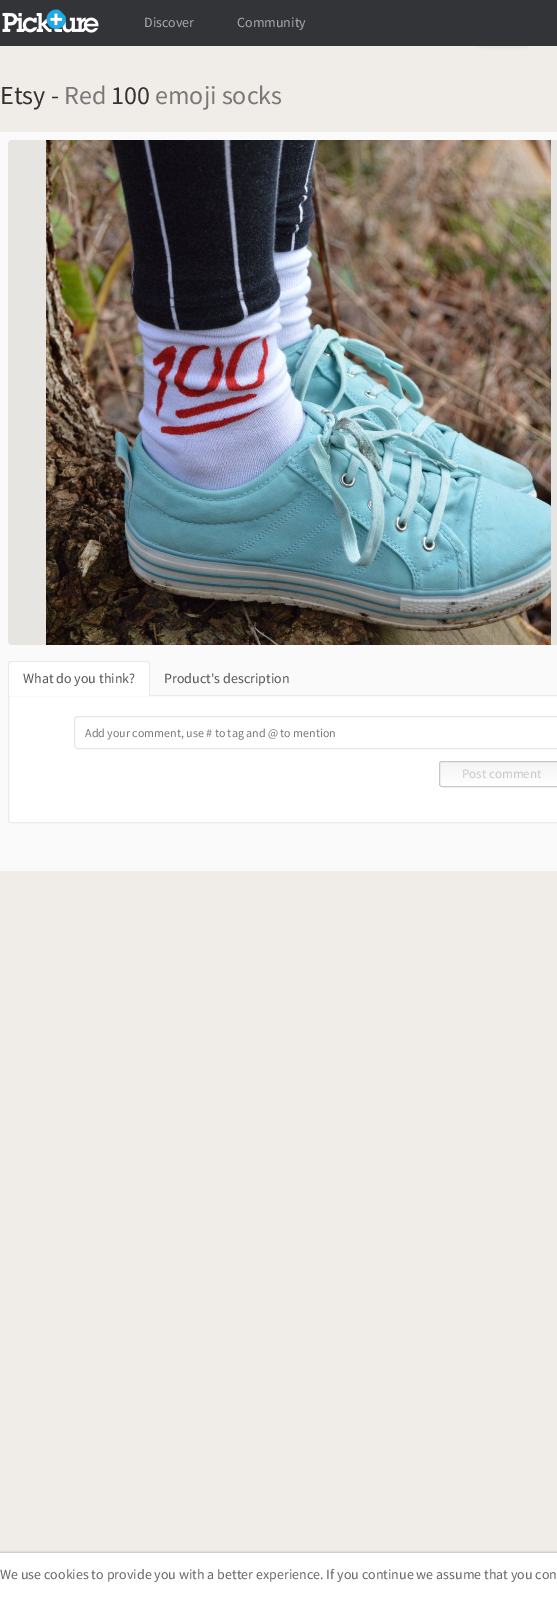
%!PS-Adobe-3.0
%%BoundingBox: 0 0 557 1597
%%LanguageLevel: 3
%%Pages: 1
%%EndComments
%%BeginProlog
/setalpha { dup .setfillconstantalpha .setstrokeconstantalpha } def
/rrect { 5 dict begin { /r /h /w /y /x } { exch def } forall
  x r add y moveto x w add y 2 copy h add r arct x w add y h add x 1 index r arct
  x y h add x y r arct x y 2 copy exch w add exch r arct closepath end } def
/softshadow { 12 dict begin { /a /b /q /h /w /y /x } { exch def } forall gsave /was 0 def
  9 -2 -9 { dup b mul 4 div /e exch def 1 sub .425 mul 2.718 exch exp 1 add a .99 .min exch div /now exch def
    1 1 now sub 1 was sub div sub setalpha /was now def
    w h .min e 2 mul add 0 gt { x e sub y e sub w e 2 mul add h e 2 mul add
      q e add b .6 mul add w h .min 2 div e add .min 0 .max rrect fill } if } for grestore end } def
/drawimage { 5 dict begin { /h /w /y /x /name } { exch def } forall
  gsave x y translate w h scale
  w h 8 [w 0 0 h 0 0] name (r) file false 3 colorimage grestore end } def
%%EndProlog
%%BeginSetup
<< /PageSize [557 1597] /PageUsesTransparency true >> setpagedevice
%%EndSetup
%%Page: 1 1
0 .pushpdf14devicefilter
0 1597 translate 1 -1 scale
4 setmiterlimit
0.941 0.929 0.914 setrgbcolor
0 0 557 1597 rectfill
0.8 setgray
481 0 45 45 0 3 1 softshadow
0.2 0.204 0.22 setrgbcolor
0 0 557 46 rectfill
(images/1.raw) 2 9 97 24 drawimage
0.98 setgray
0 132 557 739 rectfill
0.906 0.898 0.886 setrgbcolor
8 140 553 505 4 rrect fill
(images/2.raw) 46 140 505 505 drawimage
1 setgray
newpath 8.5 695.5 moveto 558 695.5 lineto 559.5 695.5 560.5 696.5 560.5 698 curveto 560.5 820 lineto 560.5 821.5 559.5 822.5 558 822.5 curveto 11 822.5 lineto 9.5 822.5 8.5 821.5 8.5 820 curveto closepath gsave fill grestore
0.918 setgray
stroke
1 setgray
newpath 11 661 moveto 147 661 lineto 148.5 661 150 662.5 150 664 curveto 150 696 lineto 8 696 lineto 8 664 lineto 8 662.5 9.5 661 11 661 curveto closepath fill
0.918 setgray
newpath 11 661 moveto 147 661 lineto 149 661 150 662 150 664 curveto 150 696 lineto 8 696 lineto 8 664 lineto 8 662 9 661 11 661 curveto closepath 11 662 moveto 147 662 lineto 148 662 149 663 149 664 curveto 149 696 lineto 9 696 lineto 9 664 lineto 9 663 10 662 11 662 curveto closepath eofill
0.902 setgray
74.5 716.5 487 32 3.5 rrect stroke
gsave
439 761 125 26 3 rrect clip newpath
gsave newpath 439 762 moveto 557 762 lineto 557 786 lineto 439 786 lineto closepath clip newpath
<< /ShadingType 2 /ColorSpace /DeviceRGB /Coords [502 762 502 786] /Extend [true true] /Function << /FunctionType 3 /Domain [0 1] /Functions [<< /FunctionType 2 /Domain [0 1] /C0 [0.953 0.957 0.965] /C1 [0.953 0.957 0.965] /N 1 >> << /FunctionType 2 /Domain [0 1] /C0 [0.953 0.957 0.965] /C1 [1 1 1] /N 1 >>] /Bounds [0.01] /Encode [0 1 0 1] >> >> shfill grestore
grestore
0.784 setgray
439.5 761.5 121 25 2.5 rrect stroke
0 setgray
0 1553 557 44 0 1.5 0.3 softshadow
1 setgray
0 1553 557 44 rectfill
/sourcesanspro-Regular [14 0 0 -14 0 0] selectfont
0.667 setgray
144 27 moveto (Discover) show
237 27 moveto (Community) show
/sourcesanspro-Regular [26 0 0 -26 0 0] selectfont
0.2 setgray
0 104 moveto (Etsy -) show
0.471 setgray
64 104 moveto (Red) show
0.2 setgray
111 104 moveto (100) show
0.471 setgray
155 104 moveto (emoji socks) show
/sourcesanspro-Regular [14 0 0 -14 0 0] selectfont
0.333 setgray
23 683 moveto (What do you think?) show
164 683 moveto (Product's description) show
/sourcesanspro-Regular [12 0 0 -12 0 0] selectfont
0.471 setgray
85 737 moveto (Add your comment, use # to tag and @ to mention) show
/sourcesanspro-Regular [13 0 0 -13 0 0] selectfont
0.784 setgray
462 778 moveto (Post comment) show
/sourcesanspro-Regular [14 0 0 -14 0 0] selectfont
0.4 setgray
0 1579 moveto (We use cookies to provide you with a better experience. If you continue we assume that you con) show
.poppdf14devicefilter showpage
%%EOF
